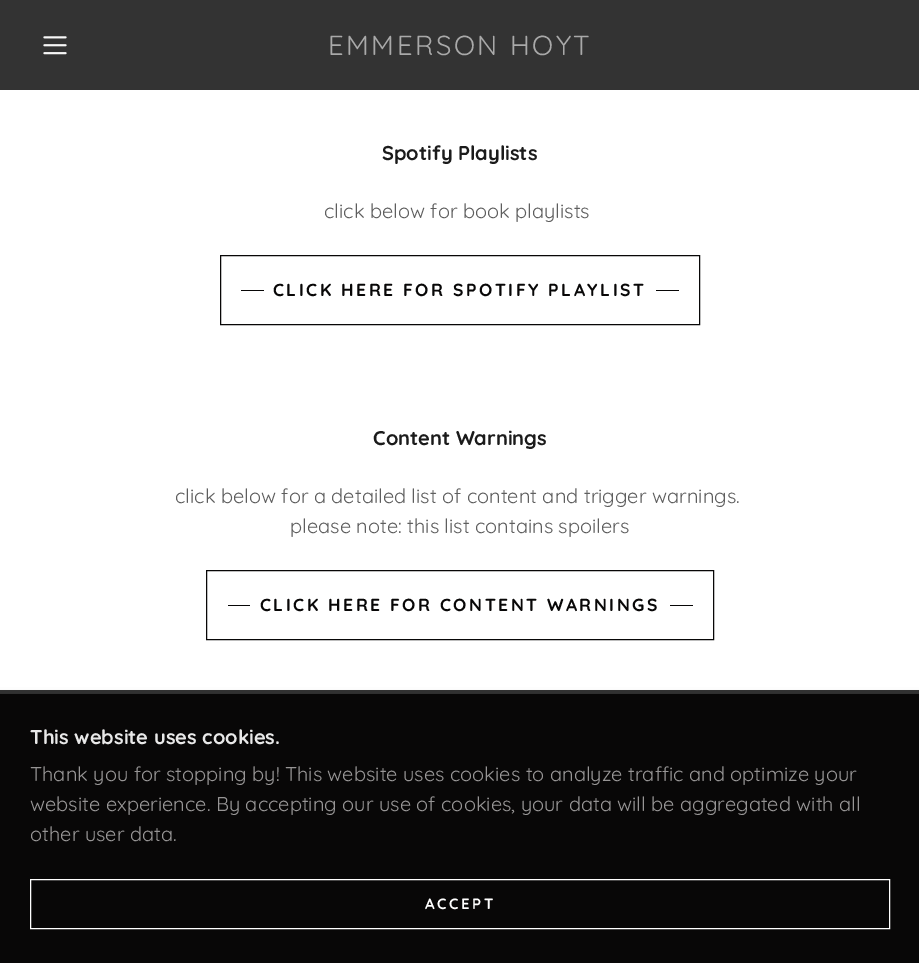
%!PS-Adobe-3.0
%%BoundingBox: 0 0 919 963
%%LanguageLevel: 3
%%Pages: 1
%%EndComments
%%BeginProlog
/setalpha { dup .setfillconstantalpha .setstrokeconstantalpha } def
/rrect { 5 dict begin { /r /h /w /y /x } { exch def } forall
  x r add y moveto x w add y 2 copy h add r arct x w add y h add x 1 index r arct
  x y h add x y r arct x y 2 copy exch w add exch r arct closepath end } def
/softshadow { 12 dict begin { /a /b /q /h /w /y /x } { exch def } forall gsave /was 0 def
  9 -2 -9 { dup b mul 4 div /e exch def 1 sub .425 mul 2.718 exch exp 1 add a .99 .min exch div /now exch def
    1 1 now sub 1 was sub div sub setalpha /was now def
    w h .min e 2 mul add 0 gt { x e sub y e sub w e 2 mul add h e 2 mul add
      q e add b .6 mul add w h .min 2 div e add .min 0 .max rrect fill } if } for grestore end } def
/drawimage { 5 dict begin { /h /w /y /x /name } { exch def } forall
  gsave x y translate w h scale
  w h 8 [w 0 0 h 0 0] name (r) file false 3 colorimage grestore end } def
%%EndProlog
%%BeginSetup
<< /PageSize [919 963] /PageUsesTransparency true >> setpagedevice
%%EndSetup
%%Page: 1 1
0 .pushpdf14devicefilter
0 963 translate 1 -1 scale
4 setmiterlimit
0.2 setgray
0 0 919 963 rectfill
(images/1.raw) 43 36 24 19 drawimage
1 setgray
0 90 919 600 rectfill
0.031 0.027 0.027 setrgbcolor
220.5 255.5 479 69 rectstroke
241 290 23 1 rectfill
656 290 23 1 rectfill
206.5 570.5 507 69 rectstroke
228 605 22 1 rectfill
670 605 23 1 rectfill
0 setgray
0 696 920 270 0 4 0.3 softshadow
0.031 0.027 0.027 setrgbcolor
0 694 919 269 rectfill
1 setgray
30.5 879.5 859 49 rectstroke
/Quicksand-Regular [27.5 0 0 -27.5 0 0] selectfont
0.663 setgray
328 55 moveto 2.5 0 (EMMERSON HOYT) ashow
/Quicksand-Bold [20 0 0 -20 0 0] selectfont
0.106 setgray
382 160 moveto (Spotify Playlists) show
/Quicksand-Regular [20 0 0 -20 0 0] selectfont
0.369 setgray
324 218 moveto (click below for book playlists) show
/Quicksand-Bold [17.5 0 0 -17.5 0 0] selectfont
0.031 0.027 0.027 setrgbcolor
273 296 moveto 2.5 0 (CLICK HERE FOR SPOTIFY PLAYLIST) ashow
/Quicksand-Bold [20 0 0 -20 0 0] selectfont
0.106 setgray
373 445 moveto (Content Warnings) show
/Quicksand-Regular [20 0 0 -20 0 0] selectfont
0.369 setgray
175 503 moveto (click below for a detailed list of content and trigger warnings.) show
290 533 moveto (please note: this list contains spoilers) show
/Quicksand-Bold [17.5 0 0 -17.5 0 0] selectfont
0.031 0.027 0.027 setrgbcolor
260 611 moveto 2.5 0 (CLICK HERE FOR CONTENT WARNINGS) ashow
/Quicksand-Bold [20 0 0 -20 0 0] selectfont
0.91 setgray
30 744 moveto (This website uses cookies.) show
/Quicksand-Regular [20 0 0 -20 0 0] selectfont
0.592 0.584 0.584 setrgbcolor
30 781 moveto (Thank you for stopping by! This website uses cookies to analyze traffic and optimize your) show
30 811 moveto (website experience. By accepting our use of cookies, your data will be aggregated with all) show
30 841 moveto (other user data.) show
/Quicksand-Bold [15 0 0 -15 0 0] selectfont
1 setgray
425 909 moveto 2.5 0 (ACCEPT) ashow
.poppdf14devicefilter showpage
%%EOF
